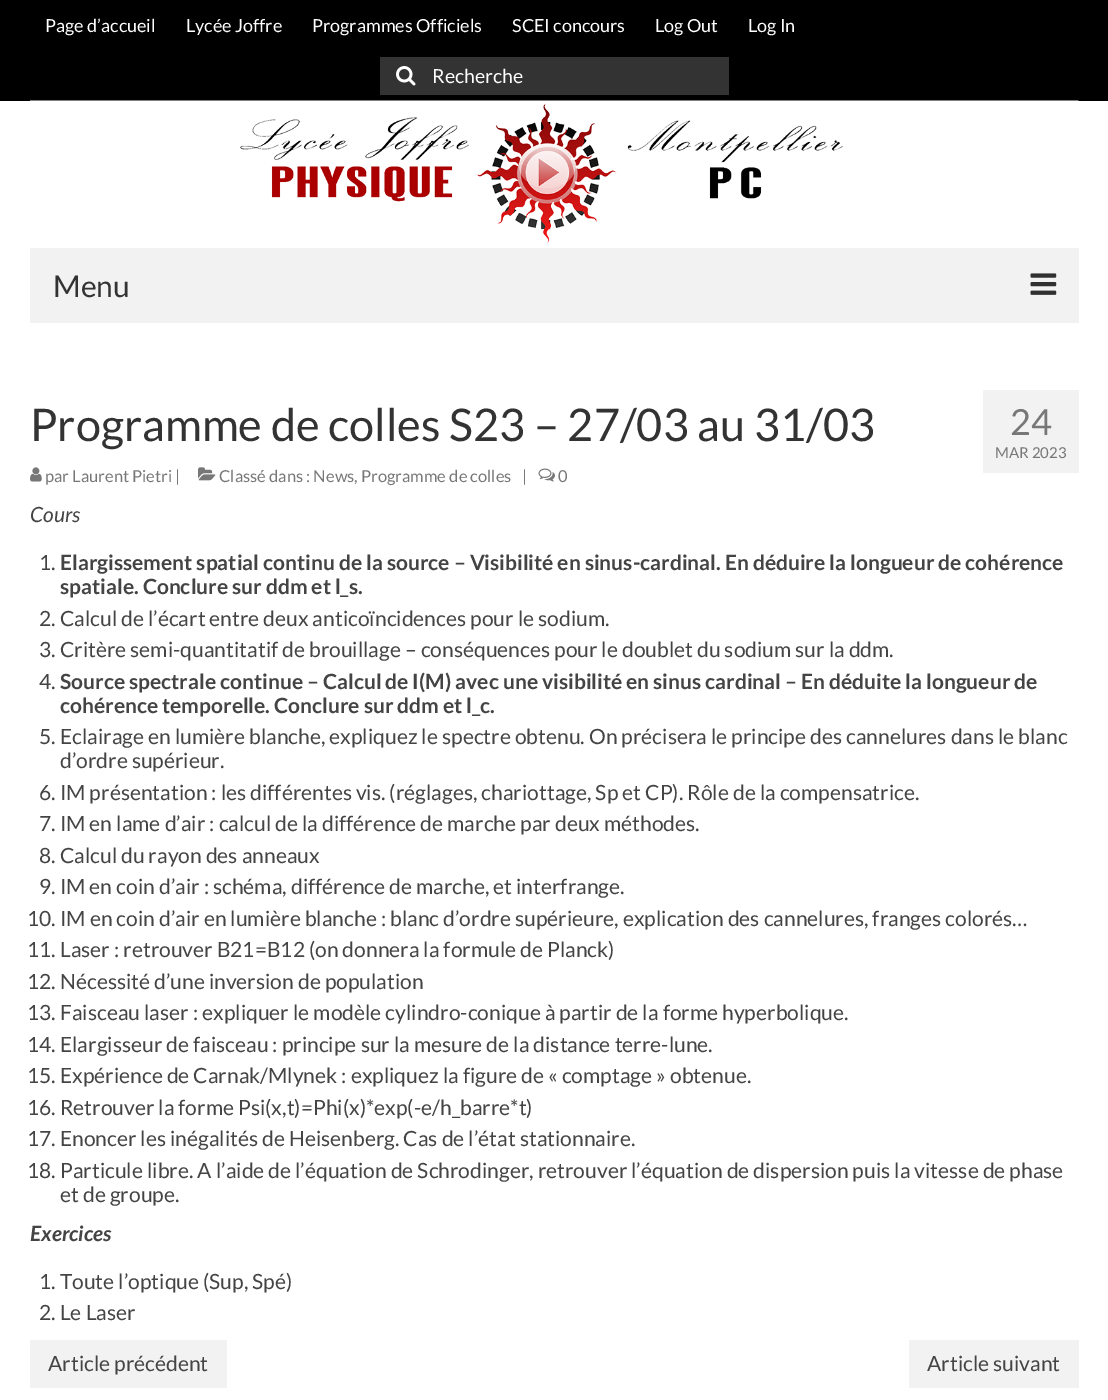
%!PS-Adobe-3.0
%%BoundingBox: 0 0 1108 1400
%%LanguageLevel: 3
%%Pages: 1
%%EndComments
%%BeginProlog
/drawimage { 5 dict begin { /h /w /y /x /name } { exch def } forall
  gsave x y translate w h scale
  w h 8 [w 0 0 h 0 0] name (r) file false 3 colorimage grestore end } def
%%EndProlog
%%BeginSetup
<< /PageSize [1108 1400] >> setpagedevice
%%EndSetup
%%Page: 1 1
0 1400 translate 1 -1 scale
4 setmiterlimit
1 setgray
0 0 1108 1400 rectfill
0 setgray
0 0 1108 101 rectfill
0.2 setgray
380 57 349 38 rectfill
(images/1.raw) 396 66 20 20 drawimage
(images/2.raw) 30 100 1049 143 drawimage
0.949 setgray
30 248 1049 75 rectfill
(images/3.raw) 1030 273 27 22 drawimage
(images/4.raw) 30 467 12 15 drawimage
(images/5.raw) 198 467 18 14 drawimage
(images/6.raw) 538 468 17 14 drawimage
983 390 96 83 rectfill
30 1340 197 48 rectfill
909 1340 170 48 rectfill
/Lato-Regular [18 0 0 -18 0 0] selectfont
1 setgray
45 32 moveto (Page d’accueil) show
186 32 moveto (Lycée Joffre) show
312 32 moveto (Programmes Officiels) show
512 32 moveto (SCEI concours) show
655 32 moveto (Log Out) show
748 32 moveto (Log In) show
/Lato-Regular [19.5 0 0 -19.5 0 0] selectfont
432 83 moveto (Recherche) show
/Lato-Regular [30 0 0 -30 0 0] selectfont
0.2 setgray
53 297 moveto (Menu) show
/Lato-Regular [45 0 0 -45 0 0] selectfont
30 441 moveto (Programme de colles S23 – 27/03 au 31/03) show
/Lato-Regular [16.5 0 0 -16.5 0 0] selectfont
0.467 setgray
45 482 moveto (par Laurent Pietri |) show
219 482 moveto (Classé dans : News, Programme de colles) show
522 482 moveto (|) show
558 482 moveto (0) show
/Lato-Regular [36 0 0 -36 0 0] selectfont
1010 435 moveto (24) show
/Lato-Regular [15 0 0 -15 0 0] selectfont
995 458 moveto (MAR 2023) show
/Lato-Italic [21 0 0 -21 0 0] selectfont
0.267 setgray
30 522 moveto (Cours) show
/Lato-Regular [21 0 0 -21 0 0] selectfont
39 570 moveto (1.) show
/Lato-Bold [21 0 0 -21 0 0] selectfont
60 570 moveto (Elargissement spatial continu de la source – Visibilité en sinus-cardinal. En déduire la longueur de cohérence) show
60 594 moveto (spatiale. Conclure sur ddm et l_s.) show
/Lato-Regular [21 0 0 -21 0 0] selectfont
39 626 moveto (2. Calcul de l’écart entre deux anticoïncidences pour le sodium.) show
39 657 moveto (3. Critère semi-quantitatif de brouillage – conséquences pour le doublet du sodium sur la ddm.) show
39 689 moveto (4.) show
/Lato-Bold [21 0 0 -21 0 0] selectfont
60 689 moveto (Source spectrale continue – Calcul de I\(M\) avec une visibilité en sinus cardinal – En déduite la longueur de) show
60 713 moveto (cohérence temporelle. Conclure sur ddm et l_c.) show
/Lato-Regular [21 0 0 -21 0 0] selectfont
39 744 moveto (5. Eclairage en lumière blanche, expliquez le spectre obtenu. On précisera le principe des cannelures dans le blanc) show
60 768 moveto (d’ordre supérieur.) show
39 800 moveto (6. IM présentation : les différentes vis. \(réglages, chariottage, Sp et CP\). Rôle de la compensatrice.) show
39 831 moveto (7. IM en lame d’air : calcul de la différence de marche par deux méthodes.) show
39 863 moveto (8. Calcul du rayon des anneaux) show
39 894 moveto (9. IM en coin d’air : schéma, différence de marche, et interfrange.) show
27 926 moveto (10. IM en coin d’air en lumière blanche : blanc d’ordre supérieure, explication des cannelures, franges colorés…) show
27 957 moveto (11. Laser : retrouver B21=B12 \(on donnera la formule de Planck\)) show
27 989 moveto (12. Nécessité d’une inversion de population) show
27 1020 moveto (13. Faisceau laser : expliquer le modèle cylindro-conique à partir de la forme hyperbolique.) show
27 1052 moveto (14. Elargisseur de faisceau : principe sur la mesure de la distance terre-lune.) show
27 1083 moveto (15. Expérience de Carnak/Mlynek : expliquez la figure de « comptage » obtenue.) show
27 1115 moveto (16. Retrouver la forme Psi\(x,t\)=Phi\(x\)*exp\(-e/h_barre*t\)) show
27 1146 moveto (17. Enoncer les inégalités de Heisenberg. Cas de l’état stationnaire.) show
27 1178 moveto (18. Particule libre. A l’aide de l’équation de Schrodinger, retrouver l’équation de dispersion puis la vitesse de phase) show
60 1202 moveto (et de groupe.) show
/Lato-BoldItalic [21 0 0 -21 0 0] selectfont
30 1241 moveto (Exercices) show
/Lato-Regular [21 0 0 -21 0 0] selectfont
39 1289 moveto (1. Toute l’optique \(Sup, Spé\)) show
39 1320 moveto (2. Le Laser) show
48 1371 moveto (Article précédent) show
927 1371 moveto (Article suivant) show
showpage
%%EOF
